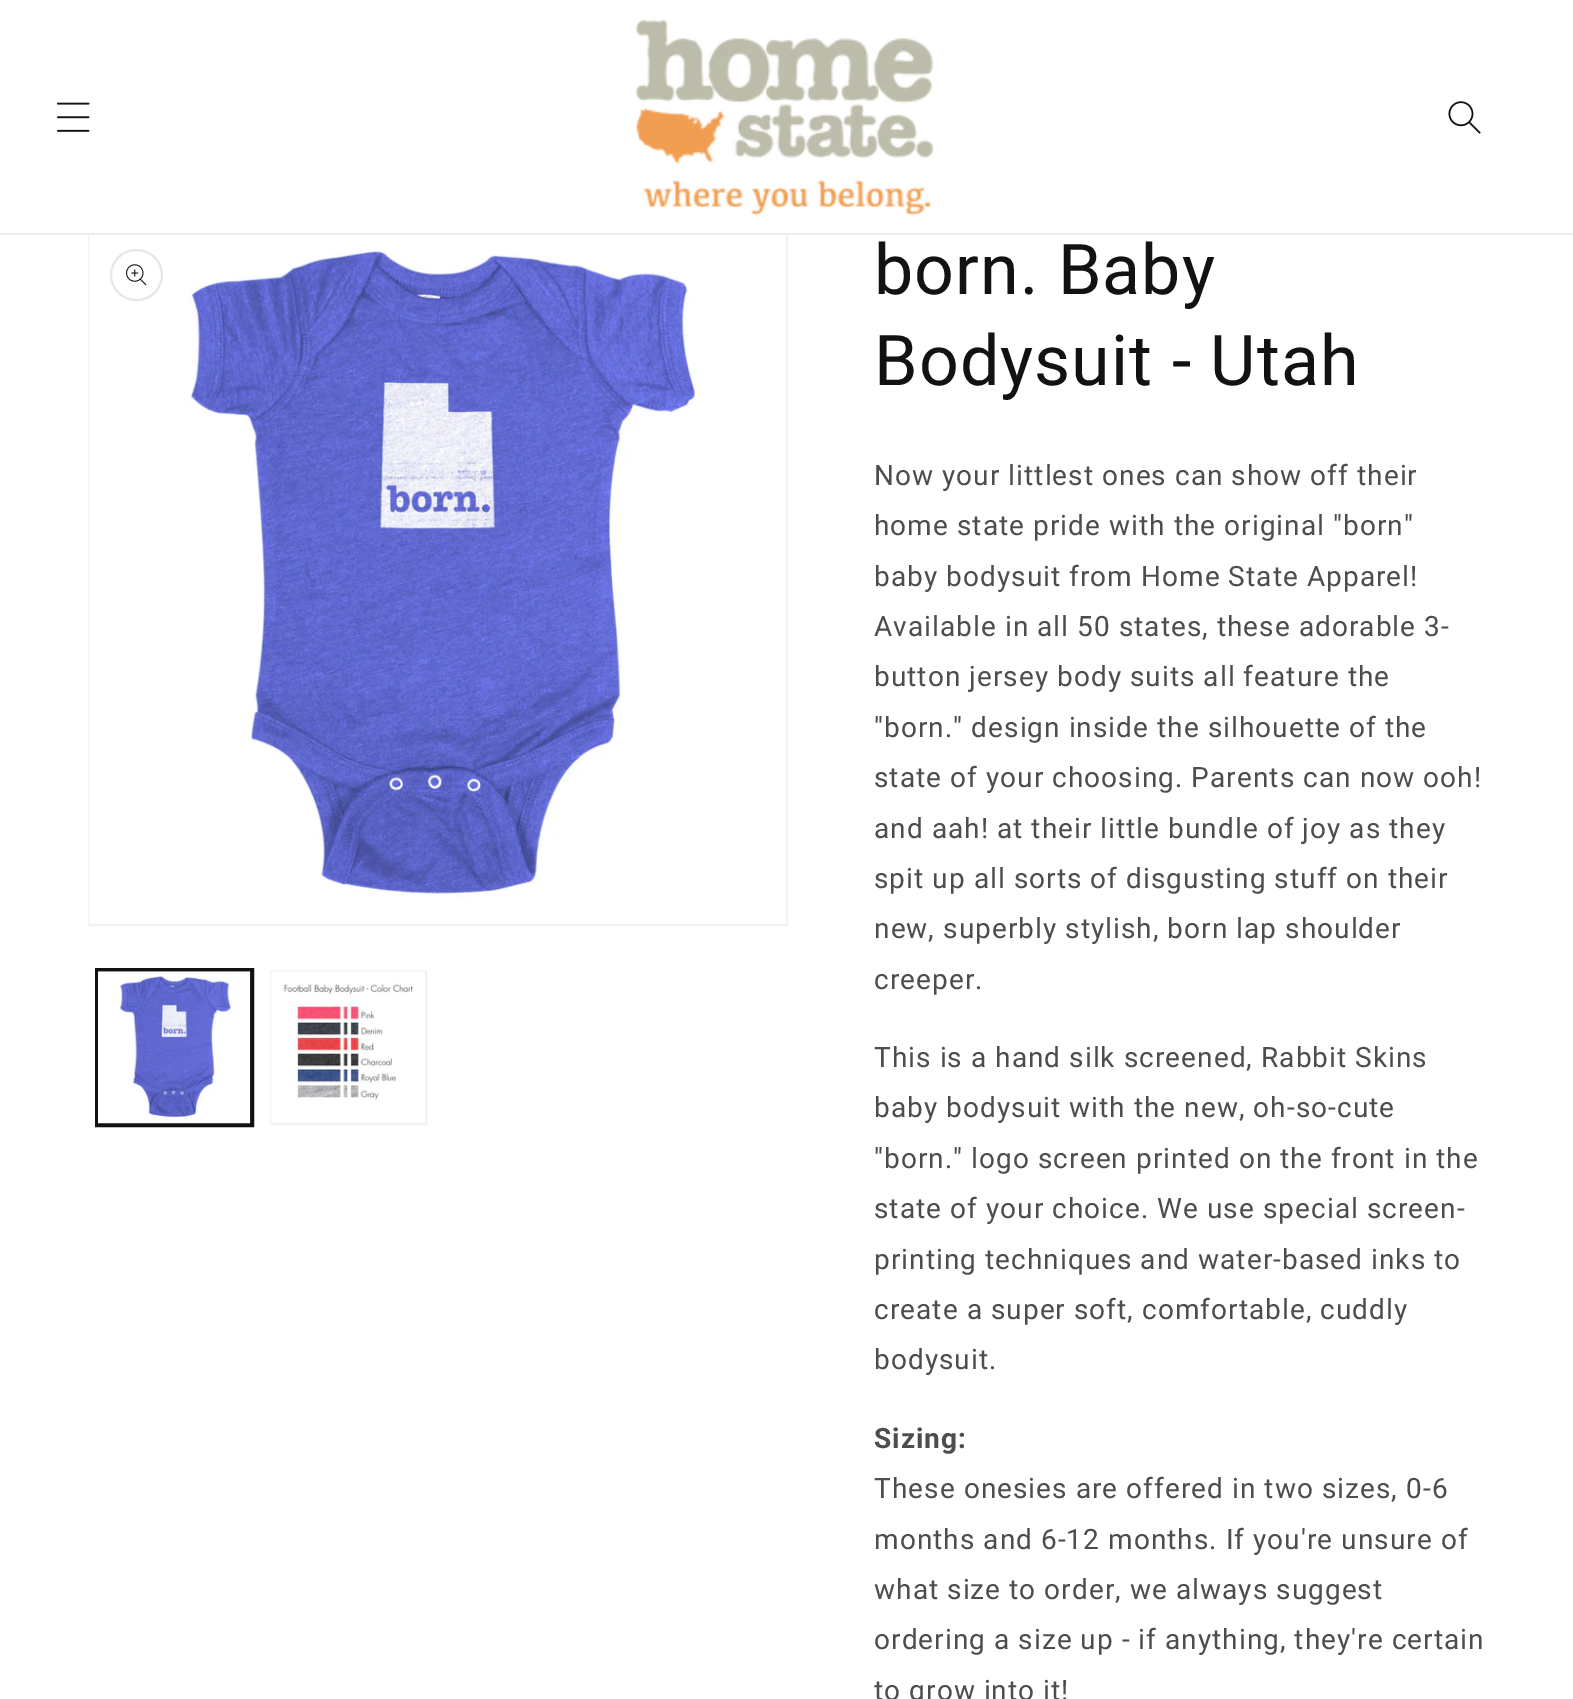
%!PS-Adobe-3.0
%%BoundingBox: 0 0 1573 1699
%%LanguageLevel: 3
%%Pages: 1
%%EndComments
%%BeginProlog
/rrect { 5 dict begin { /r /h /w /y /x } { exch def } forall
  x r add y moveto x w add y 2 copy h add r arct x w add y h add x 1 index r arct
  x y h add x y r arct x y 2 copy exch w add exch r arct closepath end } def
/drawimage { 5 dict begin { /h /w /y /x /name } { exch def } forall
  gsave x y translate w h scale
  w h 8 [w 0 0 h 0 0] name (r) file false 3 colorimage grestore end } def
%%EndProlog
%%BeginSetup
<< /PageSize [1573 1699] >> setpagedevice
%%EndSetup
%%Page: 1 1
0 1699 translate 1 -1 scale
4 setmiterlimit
1 setgray
0 0 1573 1699 rectfill
0.953 setgray
2 setlinewidth
89 227 698 698 rectstroke
1 setgray
88 226 700 7 rectfill
0.925 setgray
0 233 1573 2 rectfill
(images/1.raw) 57 102 33 30 drawimage
(images/2.raw) 635 19 299 197 drawimage
(images/3.raw) 1448 101 33 33 drawimage
(images/4.raw) 89 235 610 689 drawimage
0.906 setgray
111 250 51 50 25 rrect stroke
(images/5.raw) 126 264 21 22 drawimage
0.071 setgray
96 969 157 157 rectstroke
97 971 154 153 rectstroke
(images/6.raw) 98 971 153 153 drawimage
0.953 setgray
271 971 155 153 rectstroke
(images/7.raw) 271 971 154 152 drawimage
/Roboto-Regular [70 0 0 -70 0 0] selectfont
0.071 setgray
874 294 moveto 1.05 0 (born. Baby) ashow
874 385 moveto 1.05 0 (Bodysuit - Utah) ashow
/Roboto-Regular [28 0 0 -28 0 0] selectfont
0.302 setgray
874 485 moveto 1.05 0 (Now your littlest ones can show off their) ashow
874 535 moveto 1.05 0 (home state pride with the original "born") ashow
874 586 moveto 1.05 0 (baby bodysuit from Home State Apparel!) ashow
874 636 moveto 1.05 0 (Available in all 50 states, these adorable 3-) ashow
874 686 moveto 1.05 0 (button jersey body suits all feature the) ashow
874 737 moveto 1.05 0 ("born." design inside the silhouette of the) ashow
874 787 moveto 1.05 0 (state of your choosing. Parents can now ooh!) ashow
874 838 moveto 1.05 0 (and aah! at their little bundle of joy as they) ashow
874 888 moveto 1.05 0 (spit up all sorts of disgusting stuff on their) ashow
874 938 moveto 1.05 0 (new, superbly stylish, born lap shoulder) ashow
874 989 moveto 1.05 0 (creeper.) ashow
874 1067 moveto 1.05 0 (This is a hand silk screened, Rabbit Skins) ashow
874 1117 moveto 1.05 0 (baby bodysuit with the new, oh-so-cute) ashow
874 1168 moveto 1.05 0 ("born." logo screen printed on the front in the) ashow
874 1218 moveto 1.05 0 (state of your choice. We use special screen-) ashow
874 1269 moveto 1.05 0 (printing techniques and water-based inks to) ashow
874 1319 moveto 1.05 0 (create a super soft, comfortable, cuddly) ashow
874 1369 moveto 1.05 0 (bodysuit.) ashow
/Roboto-Bold [28 0 0 -28 0 0] selectfont
874 1448 moveto 1.05 0 (Sizing:) ashow
/Roboto-Regular [28 0 0 -28 0 0] selectfont
874 1498 moveto 1.05 0 (These onesies are offered in two sizes, 0-6) ashow
874 1549 moveto 1.05 0 (months and 6-12 months. If you're unsure of) ashow
874 1599 moveto 1.05 0 (what size to order, we always suggest) ashow
874 1649 moveto 1.05 0 (ordering a size up - if anything, they're certain) ashow
874 1700 moveto 1.05 0 (to grow into it!) ashow
showpage
%%EOF
